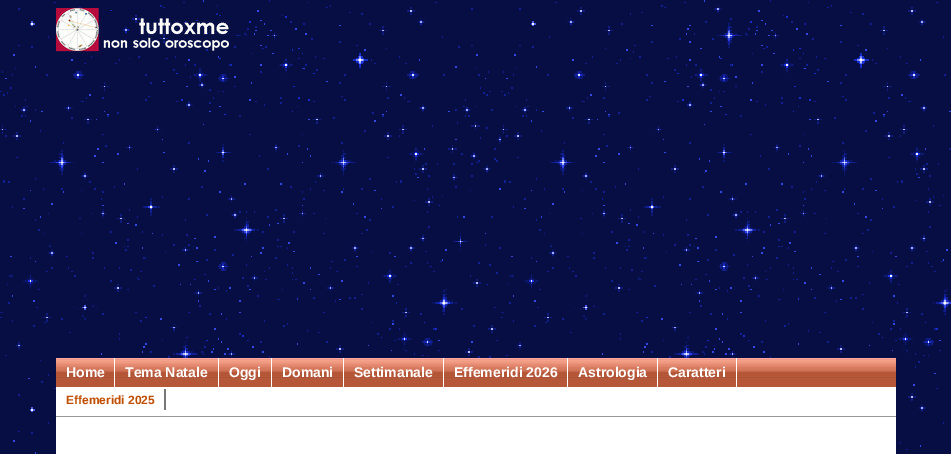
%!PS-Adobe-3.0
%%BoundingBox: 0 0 951 454
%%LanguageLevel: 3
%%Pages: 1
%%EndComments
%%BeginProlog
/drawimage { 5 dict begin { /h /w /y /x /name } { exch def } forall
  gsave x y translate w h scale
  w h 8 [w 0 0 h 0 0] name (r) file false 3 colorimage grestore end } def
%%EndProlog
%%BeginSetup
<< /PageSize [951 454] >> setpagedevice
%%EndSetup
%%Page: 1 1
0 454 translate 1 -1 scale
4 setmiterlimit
1 setgray
0 0 951 454 rectfill
(images/1.raw) 0 0 951 454 drawimage
(images/2.raw) 56 8 180 45 drawimage
56 387 840 29 rectfill
(images/3.raw) 56 358 840 29 drawimage
567 358 1 29 rectfill
0.467 setgray
164 389 2 21 rectfill
1 setgray
114 358 1 29 rectfill
218 358 1 29 rectfill
271 358 1 29 rectfill
343 358 1 29 rectfill
443 358 1 29 rectfill
657 358 1 29 rectfill
736 358 1 29 rectfill
56 417 840 37 rectfill
0.6 setgray
56 416 840 1 rectfill
/LiberationSans-Bold [14 0 0 -14 0 0] selectfont
1 setgray
454 377 moveto (Effemeridi 2026) show
/LiberationSans-Bold [12 0 0 -12 0 0] selectfont
0.753 0.302 0 setrgbcolor
66 404 moveto (Effemeridi 2025) show
/LiberationSans-Bold [14 0 0 -14 0 0] selectfont
1 setgray
66 377 moveto (Home) show
125 377 moveto (Tema Natale) show
229 377 moveto (Oggi) show
282 377 moveto (Domani) show
354 377 moveto (Settimanale) show
578 377 moveto (Astrologia) show
668 377 moveto (Caratteri) show
showpage
%%EOF
